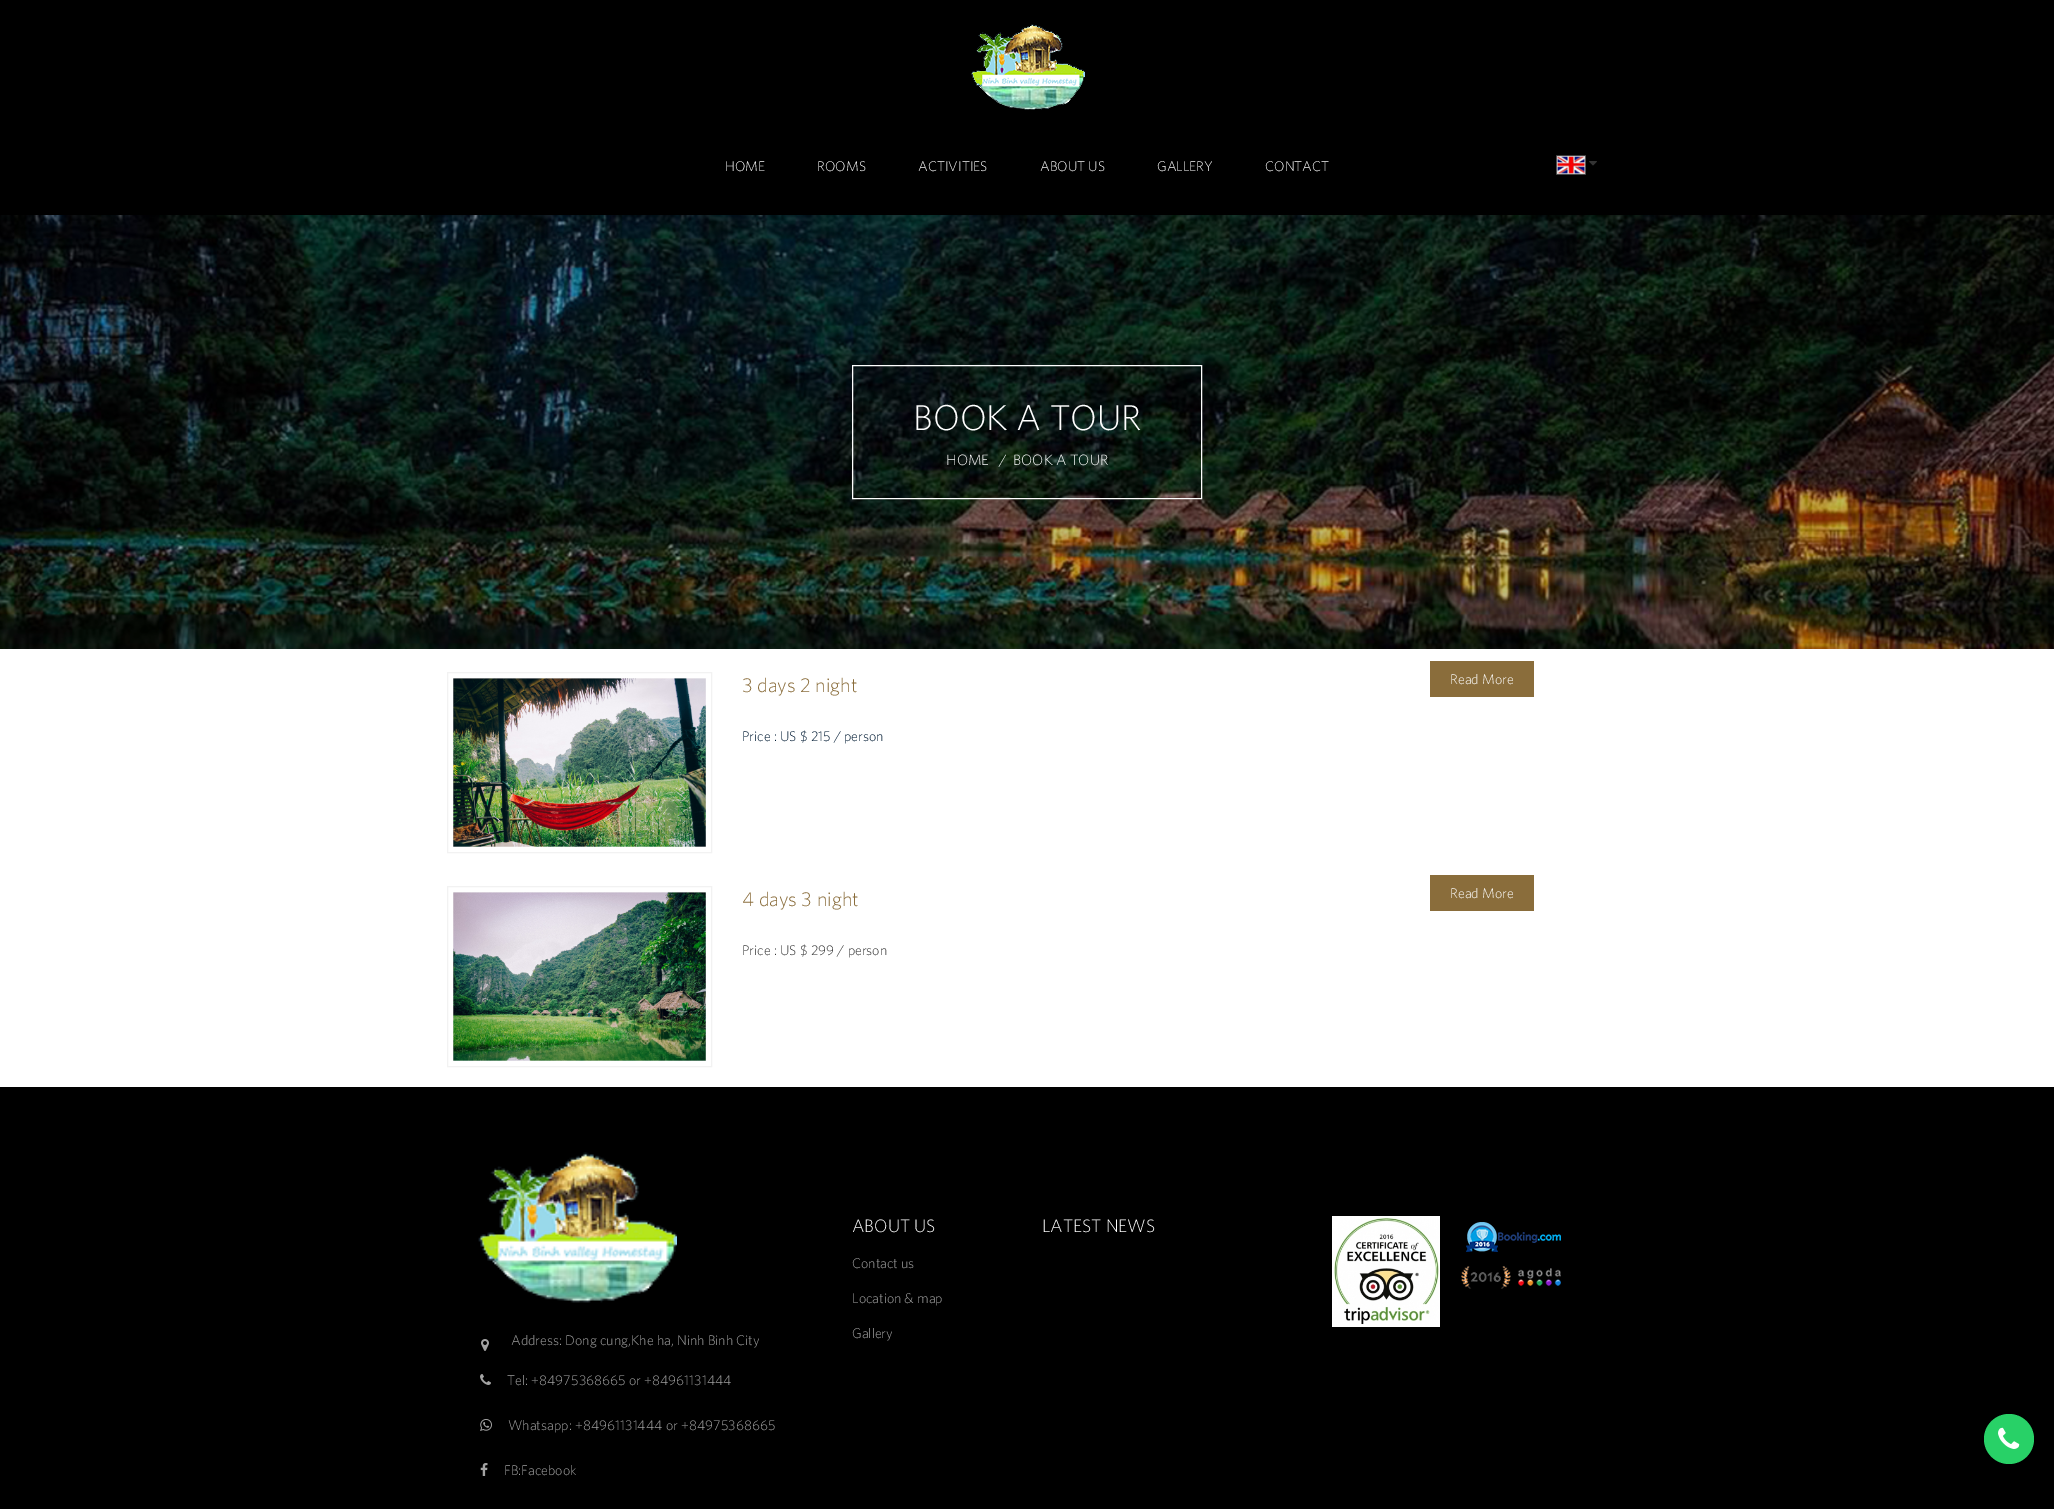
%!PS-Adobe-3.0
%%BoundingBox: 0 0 2054 1509
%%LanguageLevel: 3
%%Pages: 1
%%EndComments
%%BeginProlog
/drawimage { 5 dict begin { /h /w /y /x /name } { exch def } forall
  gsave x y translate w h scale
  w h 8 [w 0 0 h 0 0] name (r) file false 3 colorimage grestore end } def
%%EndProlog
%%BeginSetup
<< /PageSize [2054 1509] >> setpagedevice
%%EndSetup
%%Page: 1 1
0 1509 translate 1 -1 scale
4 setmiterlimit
1 setgray
0 0 2054 1509 rectfill
0 setgray
0 0 2054 215 rectfill
(images/1.raw) 971 24 114 86 drawimage
(images/2.raw) 1556 155 30 20 drawimage
(images/3.raw) 1589 161 8 5 drawimage
(images/4.raw) 0 215 2054 434 drawimage
1 setgray
852.5 365.5 349 133 rectstroke
0.949 setgray
447.5 672.5 264 180 rectstroke
(images/5.raw) 453 678 253 169 drawimage
0.541 0.427 0.231 setrgbcolor
1430 661 104 36 rectfill
0.949 setgray
447.5 886.5 264 180 rectstroke
(images/6.raw) 453 892 253 169 drawimage
0.541 0.427 0.231 setrgbcolor
1430 875 104 36 rectfill
0 setgray
0 1087 2054 422 rectfill
(images/7.raw) 1332 1216 108 111 drawimage
(images/8.raw) 1466 1222 95 30 drawimage
(images/9.raw) 1461 1266 100 23 drawimage
(images/10.raw) 478 1152 199 151 drawimage
(images/11.raw) 481 1339 8 12 drawimage
(images/12.raw) 480 1374 11 11 drawimage
(images/13.raw) 480 1419 12 12 drawimage
(images/14.raw) 480 1463 8 13 drawimage
0.157 0.82 0.404 setrgbcolor
newpath 2009 1439 25 0 360 arc closepath fill
(images/15.raw) 1998 1427 22 22 drawimage
/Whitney-Light [14 0 0 -14 0 0] selectfont
1 setgray
725 171 moveto (HOME) show
817 171 moveto (ROOMS) show
918 171 moveto (ACTIVITIES) show
1040 171 moveto (ABOUT US) show
1157 171 moveto (GALLERY) show
1265 171 moveto (CONTACT) show
/Whitney-Light [36 0 0 -36 0 0] selectfont
913 430 moveto (BOOK A TOUR) show
/Whitney-Light [15 0 0 -15 0 0] selectfont
946 465 moveto (HOME) show
999 465 moveto (/) show
1013 465 moveto (BOOK A TOUR) show
/Whitney-Light [20 0 0 -20 0 0] selectfont
0.541 0.427 0.231 setrgbcolor
742 692 moveto (3 days 2 night) show
/Whitney-Light [14 0 0 -14 0 0] selectfont
0 0.102 0.2 setrgbcolor
742 741 moveto (Price : US $ 215 / person) show
1 setgray
1450 684 moveto (Read More) show
/Whitney-Light [20 0 0 -20 0 0] selectfont
0.541 0.427 0.231 setrgbcolor
742 906 moveto (4 days 3 night) show
/Whitney-Light [14 0 0 -14 0 0] selectfont
0.2 setgray
742 955 moveto (Price : US $ 299 / person) show
1 setgray
1450 898 moveto (Read More) show
/Whitney-Light [18 0 0 -18 0 0] selectfont
852 1232 moveto (ABOUT US) show
/Whitney-Light [14 0 0 -14 0 0] selectfont
0.639 setgray
852 1268 moveto (Contact us) show
852 1303 moveto (Location & map) show
852 1338 moveto (Gallery) show
/Whitney-Light [18 0 0 -18 0 0] selectfont
1 setgray
1042 1232 moveto (LATEST NEWS) show
/Whitney-Light [14 0 0 -14 0 0] selectfont
0.639 setgray
511 1345 moveto (Address: Dong cung,Khe ha, Ninh Binh City) show
507 1385 moveto (Tel: +84975368665 or +84961131444) show
508 1430 moveto (Whatsapp: +84961131444 or +84975368665) show
504 1475 moveto (FB:Facebook) show
showpage
%%EOF
